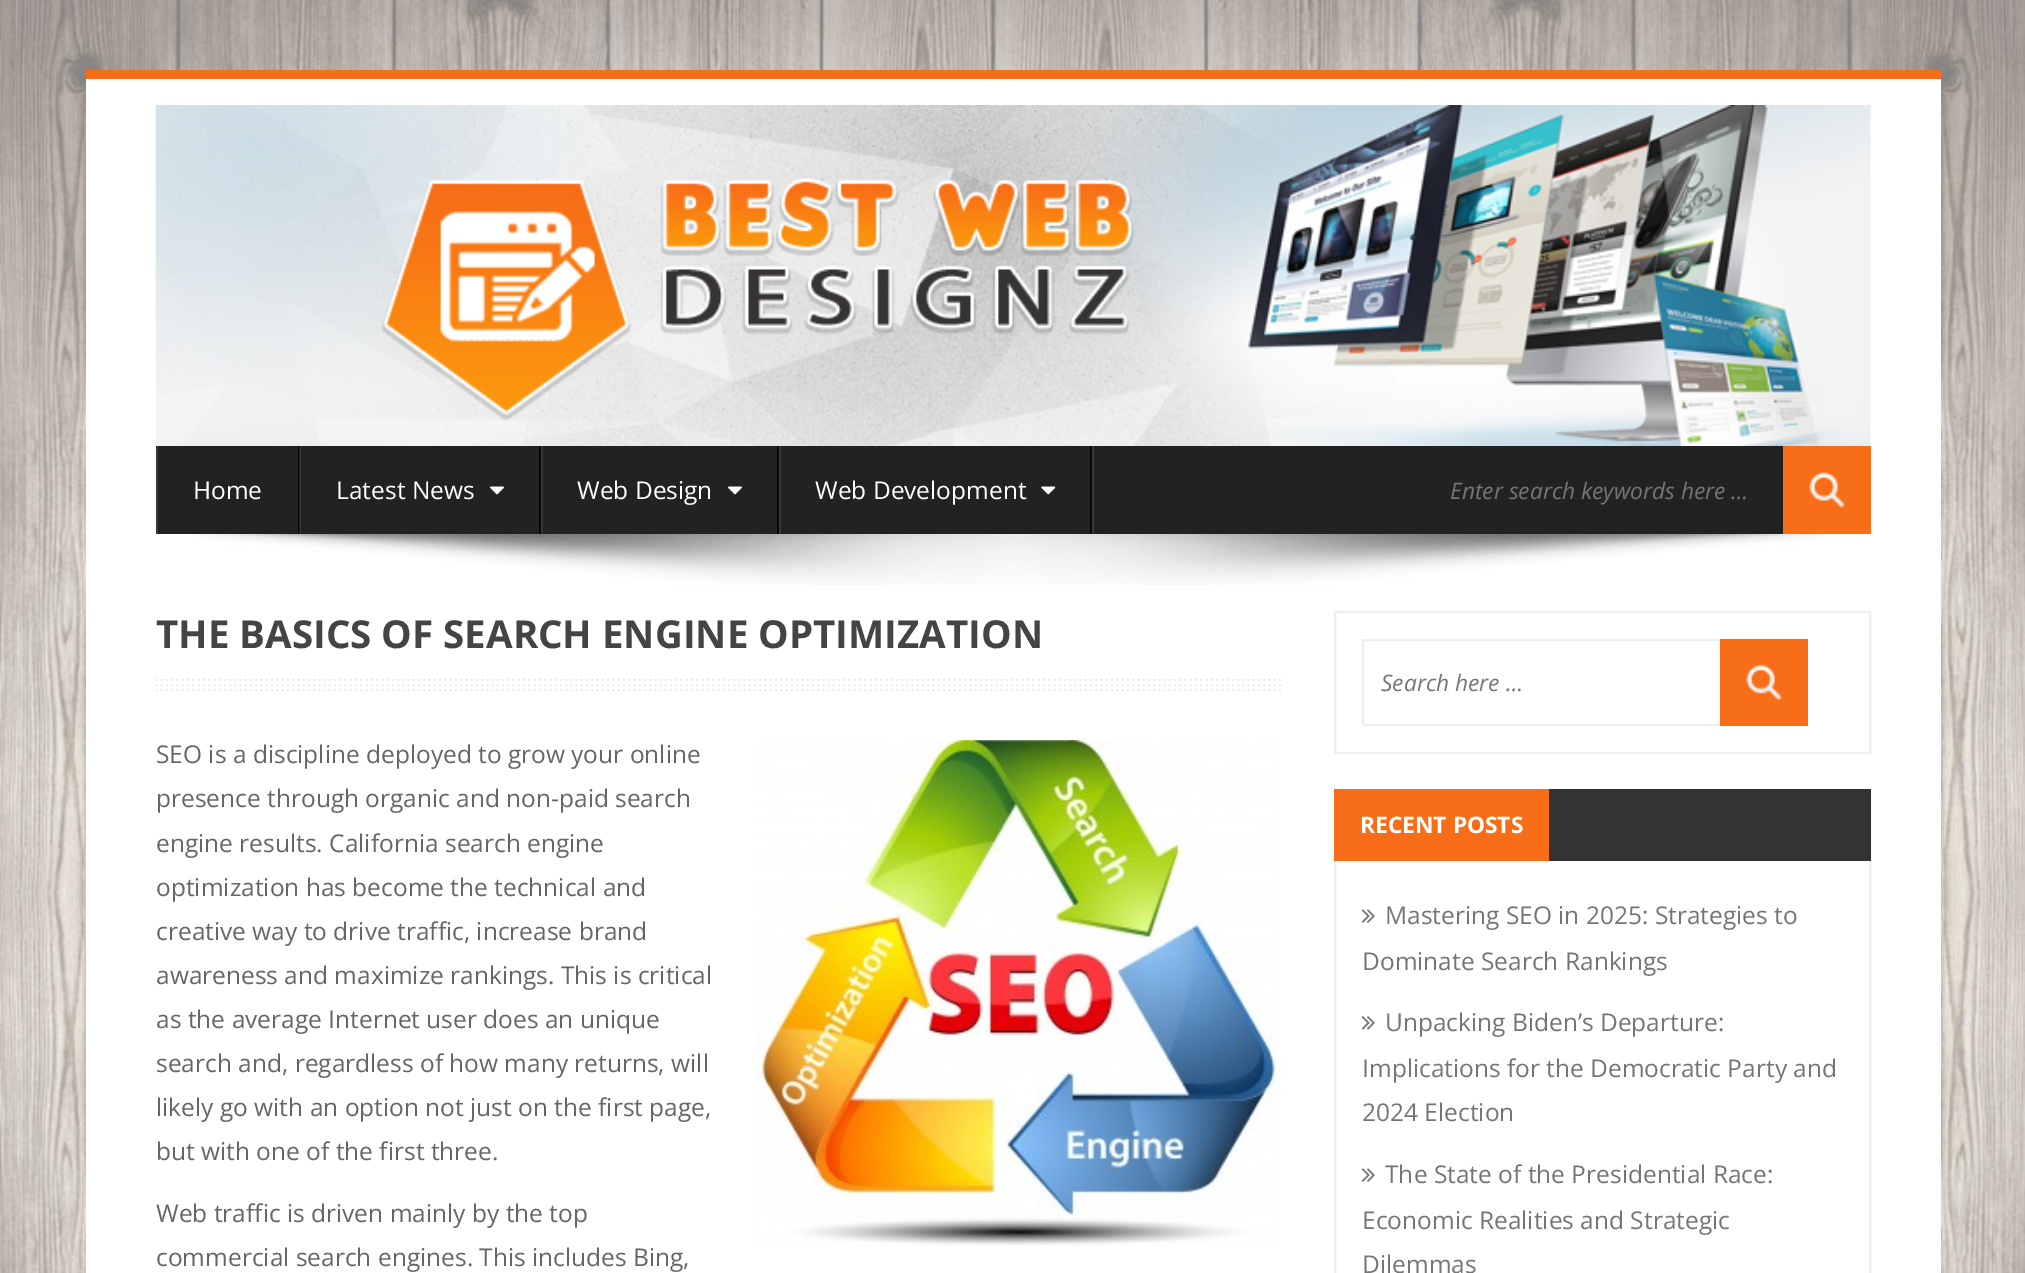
%!PS-Adobe-3.0
%%BoundingBox: 0 0 2025 1273
%%LanguageLevel: 3
%%Pages: 1
%%EndComments
%%BeginProlog
/setalpha { dup .setfillconstantalpha .setstrokeconstantalpha } def
/drawimage { 5 dict begin { /h /w /y /x /name } { exch def } forall
  gsave x y translate w h scale
  w h 8 [w 0 0 h 0 0] name (r) file false 3 colorimage grestore end } def
%%EndProlog
%%BeginSetup
<< /PageSize [2025 1273] /PageUsesTransparency true >> setpagedevice
%%EndSetup
%%Page: 1 1
0 .pushpdf14devicefilter
0 1273 translate 1 -1 scale
4 setmiterlimit
1 setgray
0 0 2025 1273 rectfill
(images/1.raw) 0 0 2025 1273 drawimage
86 79 1855 1194 rectfill
0.973 0.427 0.094 setrgbcolor
86 70 1855 9 rectfill
(images/2.raw) 155 105 1716 350 drawimage
0.133 setgray
158 446 1625 88 rectfill
0.22 setgray
1092 446 2 88 rectfill
0.027 setgray
298 446 2 88 rectfill
0.22 setgray
156 446 2 88 rectfill
0.027 setgray
539 446 2 88 rectfill
0.1 setalpha
1 setgray
299 446 2 88 rectfill
1 setalpha
(images/3.raw) 490 486 14 9 drawimage
0.027 setgray
777 446 2 88 rectfill
0.22 setgray
541 446 2 88 rectfill
(images/3.raw) 728 486 14 9 drawimage
0.027 setgray
1090 446 2 88 rectfill
0.22 setgray
779 446 2 88 rectfill
(images/4.raw) 1041 486 15 9 drawimage
0.973 0.427 0.094 setrgbcolor
1783 446 88 88 rectfill
(images/5.raw) 1809 472 36 36 drawimage
(images/6.raw) 197 534 1631 51 drawimage
(images/7.raw) 156 679 1125 13 drawimage
(images/8.raw) 756 740 525 506 drawimage
0.933 setgray
2 setlinewidth
1335 612 535 141 rectstroke
1363 640 358 85 rectstroke
0.973 0.427 0.094 setrgbcolor
1720 639 88 87 rectfill
(images/9.raw) 1746 665 36 35 drawimage
0.933 setgray
1335 790 535 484 rectstroke
0.2 setgray
1549 789 322 72 rectfill
0.973 0.427 0.094 setrgbcolor
1334 789 215 72 rectfill
(images/10.raw) 1361 909 14 14 drawimage
(images/11.raw) 1361 1016 14 14 drawimage
(images/10.raw) 1361 1168 14 14 drawimage
/OpenSans-Regular [24.5 0 0 -24.5 0 0] selectfont
1 setgray
193 499 moveto (Home) show
336 499 moveto (Latest News) show
577 499 moveto (Web Design) show
815 499 moveto (Web Development) show
/OpenSans-Italic [22.75 0 0 -22.75 0 0] selectfont
0.459 setgray
1450 499 moveto (Enter search keywords here …) show
/OpenSans-Bold [38.5 0 0 -38.5 0 0] selectfont
0.267 setgray
156 648 moveto (THE BASICS OF SEARCH ENGINE OPTIMIZATION) show
/OpenSans-Regular [24.5 0 0 -24.5 0 0] selectfont
0.4 setgray
156 763 moveto (SEO is a discipline deployed to grow your online) show
156 807 moveto (presence through organic and non-paid search) show
156 852 moveto (engine results. California search engine) show
156 896 moveto (optimization has become the technical and) show
156 940 moveto (creative way to drive traffic, increase brand) show
156 984 moveto (awareness and maximize rankings. This is critical) show
156 1028 moveto (as the average Internet user does an unique) show
156 1072 moveto (search and, regardless of how many returns, will) show
156 1116 moveto (likely go with an option not just on the first page,) show
156 1160 moveto (but with one of the first three.) show
156 1222 moveto (Web traffic is driven mainly by the top) show
156 1266 moveto (commercial search engines. This includes Bing,) show
/OpenSans-Italic [22.75 0 0 -22.75 0 0] selectfont
0.459 setgray
1381 691 moveto (Search here …) show
/OpenSans-Bold [22.75 0 0 -22.75 0 0] selectfont
1 setgray
1360 833 moveto (RECENT POSTS) show
/OpenSans-Regular [24.5 0 0 -24.5 0 0] selectfont
0.459 setgray
1385 924 moveto (Mastering SEO in 2025: Strategies to) show
1362 970 moveto (Dominate Search Rankings) show
1385 1031 moveto (Unpacking Biden’s Departure:) show
1362 1077 moveto (Implications for the Democratic Party and) show
1362 1121 moveto (2024 Election) show
1385 1183 moveto (The State of the Presidential Race:) show
1362 1229 moveto (Economic Realities and Strategic) show
1362 1273 moveto (Dilemmas) show
.poppdf14devicefilter showpage
%%EOF
